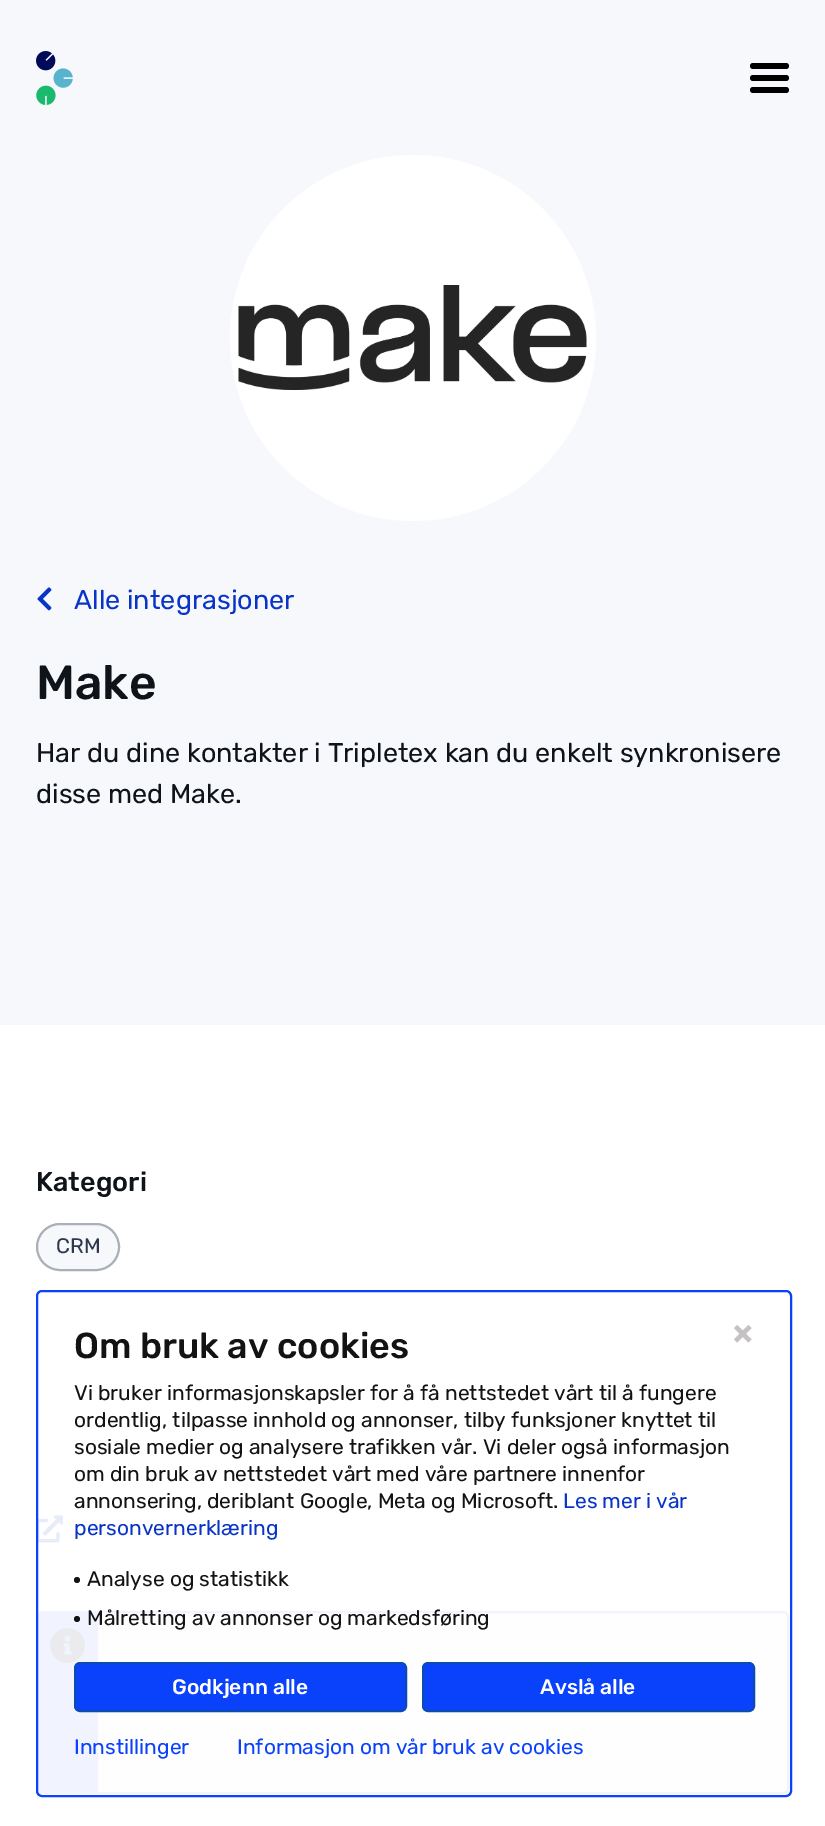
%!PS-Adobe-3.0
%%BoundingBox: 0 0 825 1826
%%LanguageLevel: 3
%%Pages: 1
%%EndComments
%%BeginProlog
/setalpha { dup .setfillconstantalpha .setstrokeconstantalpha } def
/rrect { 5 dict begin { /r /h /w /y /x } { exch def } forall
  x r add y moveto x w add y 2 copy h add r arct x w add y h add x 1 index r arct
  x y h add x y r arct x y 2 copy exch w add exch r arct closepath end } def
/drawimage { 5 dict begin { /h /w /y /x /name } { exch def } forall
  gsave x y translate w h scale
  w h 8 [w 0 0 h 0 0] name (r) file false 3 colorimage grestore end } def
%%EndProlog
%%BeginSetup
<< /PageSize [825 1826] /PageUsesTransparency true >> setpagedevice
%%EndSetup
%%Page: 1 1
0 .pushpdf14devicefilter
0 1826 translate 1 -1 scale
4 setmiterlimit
1 setgray
0 0 825 1826 rectfill
0.969 0.973 0.988 setrgbcolor
0 0 825 1025 rectfill
(images/1.raw) 36 51 37 54 drawimage
0 setgray
750 63 39 6 3 rrect fill
750 75 39 6 3 rrect fill
750 87 39 6 3 rrect fill
1 setgray
newpath 413 338 183 0 360 arc closepath fill
(images/2.raw) 238 285 349 105 drawimage
(images/3.raw) 37 587 15 24 drawimage
0.969 0.973 0.988 setrgbcolor
37 1224 82 46 23 rrect gsave fill grestore
0.671 0.686 0.718 setrgbcolor
2 setlinewidth
stroke
(images/4.raw) 38 1515 25 28 drawimage
0.949 0.961 1 setrgbcolor
37 1612 751 181 5 rrect gsave fill grestore
0.424 0.553 0.988 setrgbcolor
stroke
newpath 43 1613 moveto 98 1613 lineto 98 1793 lineto 43 1793 lineto 40 1793 38 1791 38 1788 curveto 38 1618 lineto 38 1615 40 1613 43 1613 curveto closepath fill
(images/5.raw) 50 1628 35 35 drawimage
0.9 setalpha
1 setgray
37 1291 754 505 5 rrect fill
1 setalpha
0.039 0.255 0.98 setrgbcolor
37 1291 754 505 5 rrect stroke
0.075 setgray
newpath 77 1580 3 0 360 arc closepath fill
newpath 77 1619 3 0 360 arc closepath fill
0.039 0.255 0.98 setrgbcolor
75 1663 331 48 5 rrect gsave fill grestore
0.043 0.294 0.702 setrgbcolor
stroke
0.039 0.255 0.98 setrgbcolor
423 1663 331 48 5 rrect gsave fill grestore
0.043 0.294 0.702 setrgbcolor
stroke
(images/6.raw) 734 1324 18 19 drawimage
/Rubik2-Light [27 0 0 -27 0 0] selectfont
0.031 0.204 0.78 setrgbcolor
74 609 moveto (Alle integrasjoner) show
/Rubik-Light [48 0 0 -48 0 0] selectfont
0.059 0.075 0.102 setrgbcolor
36 699 moveto (Make) show
/Rubik2-Light [27 0 0 -27 0 0] selectfont
36 762 moveto (Har du dine kontakter i Tripletex kan du enkelt synkronisere) show
36 803 moveto (disse med Make.) show
/Rubik-Light [27 0 0 -27 0 0] selectfont
36 1191 moveto (Kategori) show
/Rubik2-Light [21 0 0 -21 0 0] selectfont
0.18 0.22 0.302 setrgbcolor
56 1253 moveto (CRM) show
/Rubik-Light [36 0 0 -36 0 0] selectfont
0.075 setgray
74 1358 moveto (Om bruk av cookies) show
/Rubik2-Light [21 0 0 -21 0 0] selectfont
74 1400 moveto (Vi bruker informasjonskapsler for å få nettstedet vårt til å fungere) show
74 1427 moveto (ordentlig, tilpasse innhold og annonser, tilby funksjoner knyttet til) show
74 1454 moveto (sosiale medier og analysere trafikken vår. Vi deler også informasjon) show
74 1481 moveto (om din bruk av nettstedet vårt med våre partnere innenfor) show
74 1508 moveto (annonsering, deriblant Google, Meta og Microsoft.) show
0.031 0.204 0.78 setrgbcolor
563 1508 moveto (Les mer i vår) show
74 1535 moveto (personvernerklæring) show
0.075 setgray
87 1586 moveto (Analyse og statistikk) show
87 1625 moveto (Målretting av annonser og markedsføring) show
/Rubik-Light [21 0 0 -21 0 0] selectfont
1 setgray
172 1694 moveto (Godkjenn alle) show
540 1694 moveto (Avslå alle) show
/Rubik2-Light [21 0 0 -21 0 0] selectfont
0.039 0.255 0.98 setrgbcolor
74 1754 moveto (Innstillinger) show
237 1754 moveto (Informasjon om vår bruk av cookies) show
.poppdf14devicefilter showpage
%%EOF
